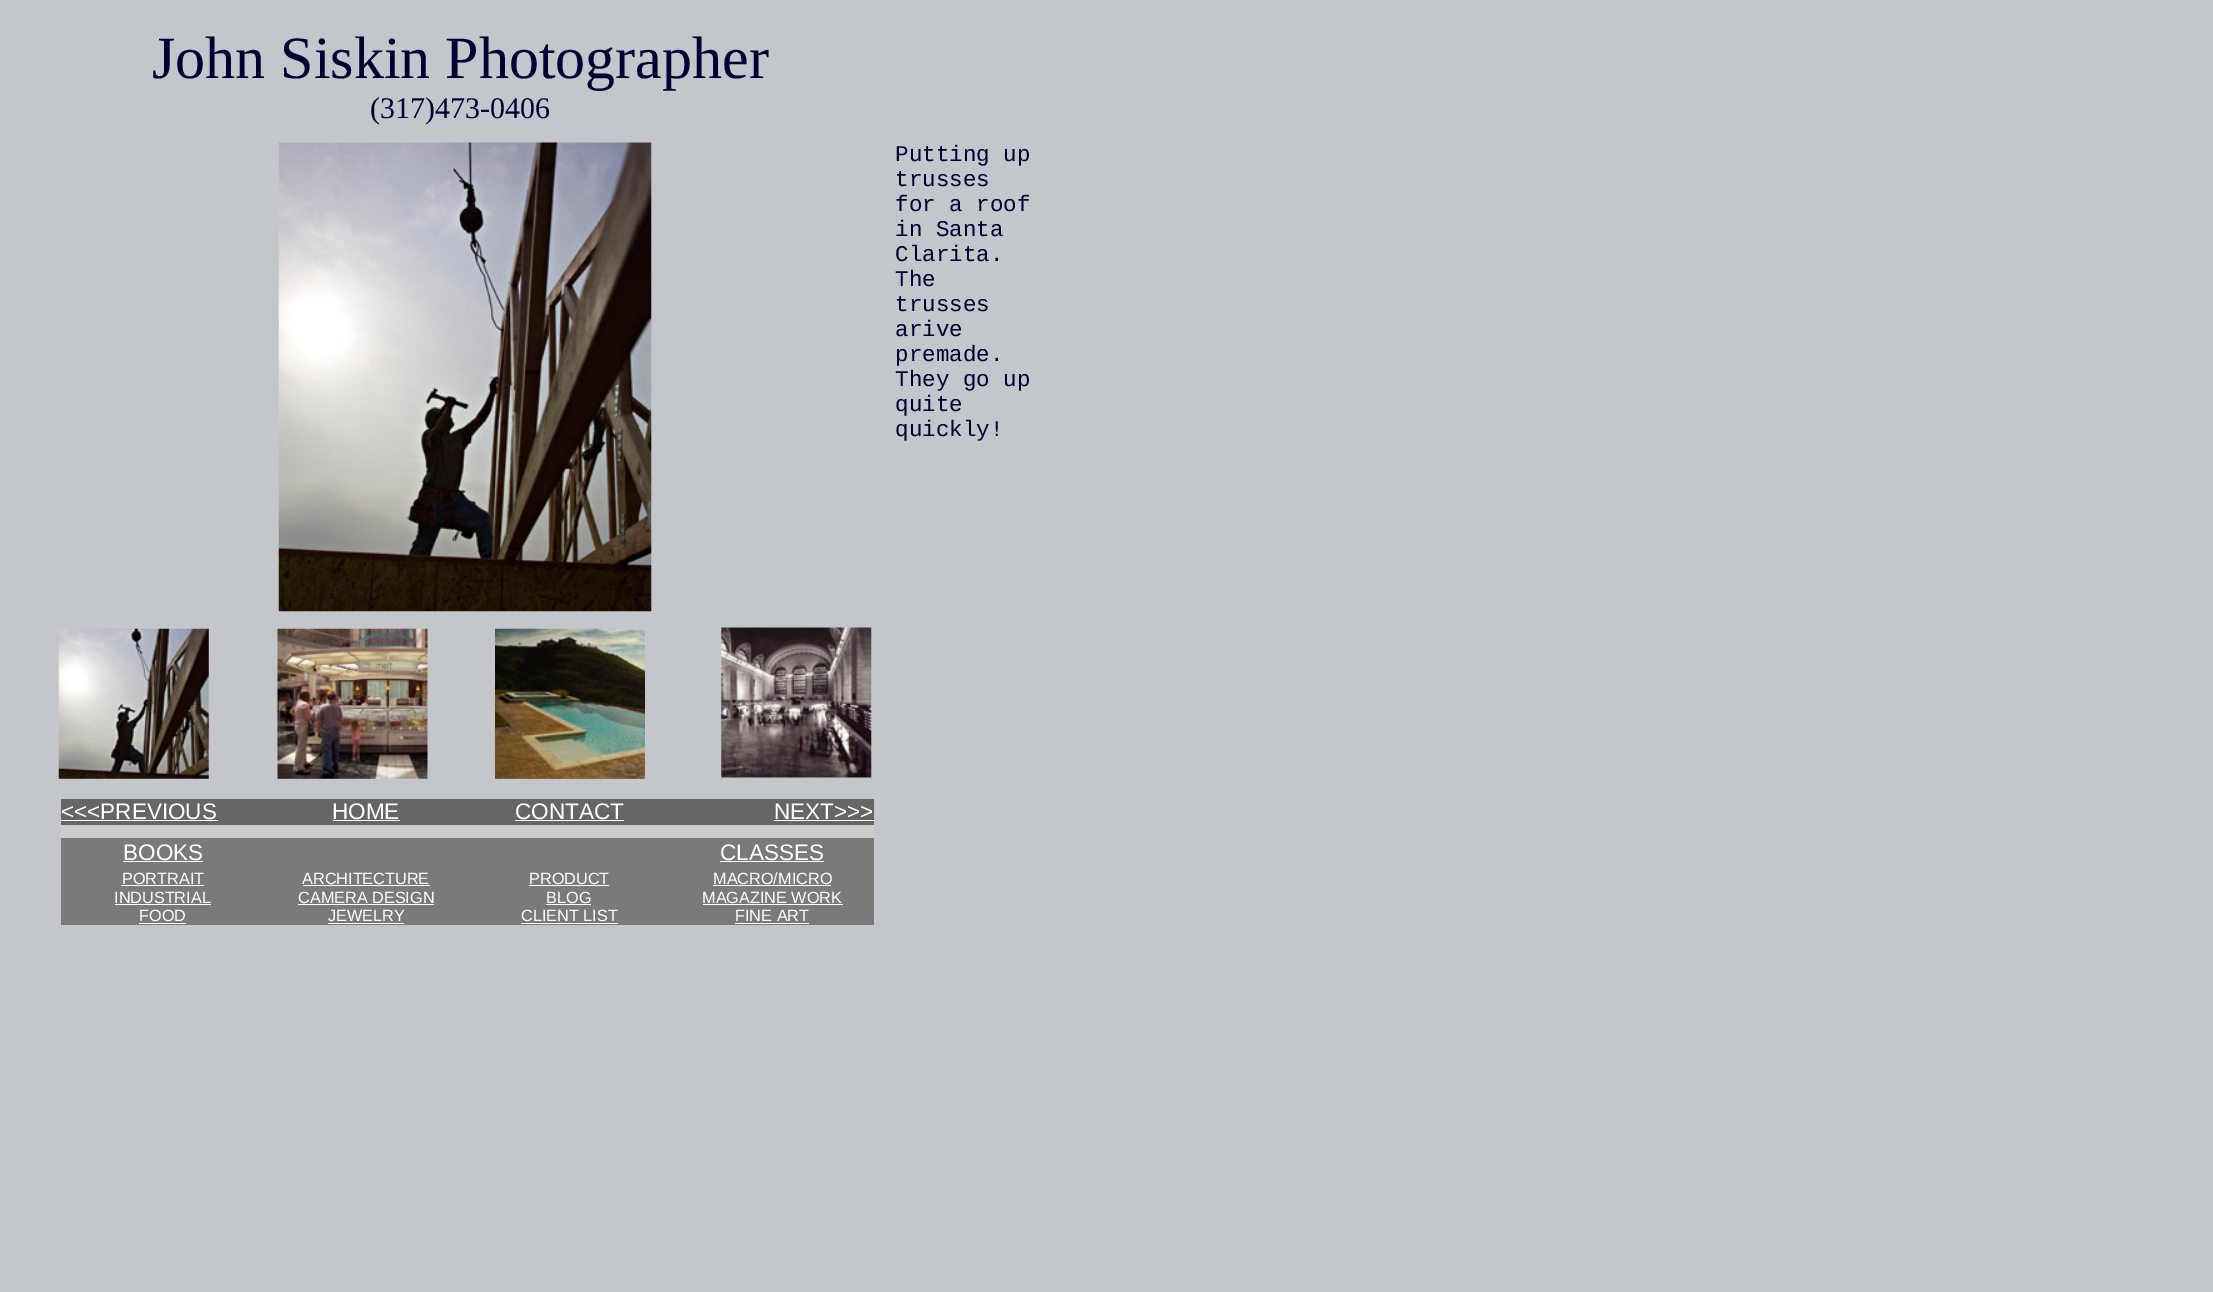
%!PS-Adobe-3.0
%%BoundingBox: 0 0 2213 1292
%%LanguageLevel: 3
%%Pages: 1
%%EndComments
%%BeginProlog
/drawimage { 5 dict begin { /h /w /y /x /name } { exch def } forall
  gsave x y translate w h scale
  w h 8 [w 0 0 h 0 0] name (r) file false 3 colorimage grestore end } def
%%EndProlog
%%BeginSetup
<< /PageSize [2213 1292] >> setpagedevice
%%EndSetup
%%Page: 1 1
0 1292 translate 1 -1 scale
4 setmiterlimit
0.765 0.78 0.8 setrgbcolor
0 0 2213 1292 rectfill
(images/1.raw) 278 142 374 470 drawimage
(images/2.raw) 58 628 151 151 drawimage
(images/3.raw) 277 628 151 151 drawimage
(images/4.raw) 495 628 150 151 drawimage
(images/5.raw) 721 627 151 151 drawimage
0.4 setgray
61 799 813 26 rectfill
1 setgray
61 820 157 1 rectfill
333 820 67 1 rectfill
515 820 109 1 rectfill
774 820 100 1 rectfill
0.8 setgray
61 825 813 13 rectfill
0.478 setgray
61 838 813 31 rectfill
1 setgray
123 861 80 1 rectfill
720 861 104 1 rectfill
0.478 setgray
61 869 813 19 rectfill
1 setgray
121 885 83 1 rectfill
303 885 127 1 rectfill
529 885 80 1 rectfill
713 885 118 1 rectfill
0.478 setgray
61 888 813 18 rectfill
1 setgray
115 904 96 1 rectfill
298 904 136 1 rectfill
546 904 45 1 rectfill
703 904 140 1 rectfill
0.478 setgray
61 906 813 19 rectfill
1 setgray
139 923 47 1 rectfill
328 923 76 1 rectfill
521 923 97 1 rectfill
735 923 74 1 rectfill
/LiberationSerif-Regular [60 0 0 -60 0 0] selectfont
0 0 0.2 setrgbcolor
152 78 moveto (John Siskin Photographer) show
/LiberationSerif-Regular [30 0 0 -30 0 0] selectfont
370 118 moveto (\(317\)473-0406) show
/LiberationMono-Regular [22.5 0 0 -22.5 0 0] selectfont
895 161 moveto (Putting up) show
895 186 moveto (trusses) show
895 211 moveto (for a roof) show
895 236 moveto (in Santa) show
895 261 moveto (Clarita.) show
895 286 moveto (The) show
895 311 moveto (trusses) show
895 336 moveto (arive) show
895 361 moveto (premade.) show
895 386 moveto (They go up) show
895 411 moveto (quite) show
895 436 moveto (quickly!) show
/LiberationSans-Regular [22.5 0 0 -22.5 0 0] selectfont
1 setgray
61 819 moveto (<<<PREVIOUS) show
332 819 moveto (HOME) show
515 819 moveto (CONTACT) show
774 819 moveto (NEXT>>>) show
123 860 moveto (BOOKS) show
720 860 moveto (CLASSES) show
/LiberationSans-Regular [16.25 0 0 -16.25 0 0] selectfont
122 884 moveto (PORTRAIT) show
302 884 moveto (ARCHITECTURE) show
529 884 moveto (PRODUCT) show
713 884 moveto (MACRO/MICRO) show
114 903 moveto (INDUSTRIAL) show
298 903 moveto (CAMERA DESIGN) show
546 903 moveto (BLOG) show
702 903 moveto (MAGAZINE WORK) show
139 921 moveto (FOOD) show
328 921 moveto (JEWELRY) show
521 921 moveto (CLIENT LIST) show
735 921 moveto (FINE ART) show
showpage
%%EOF
